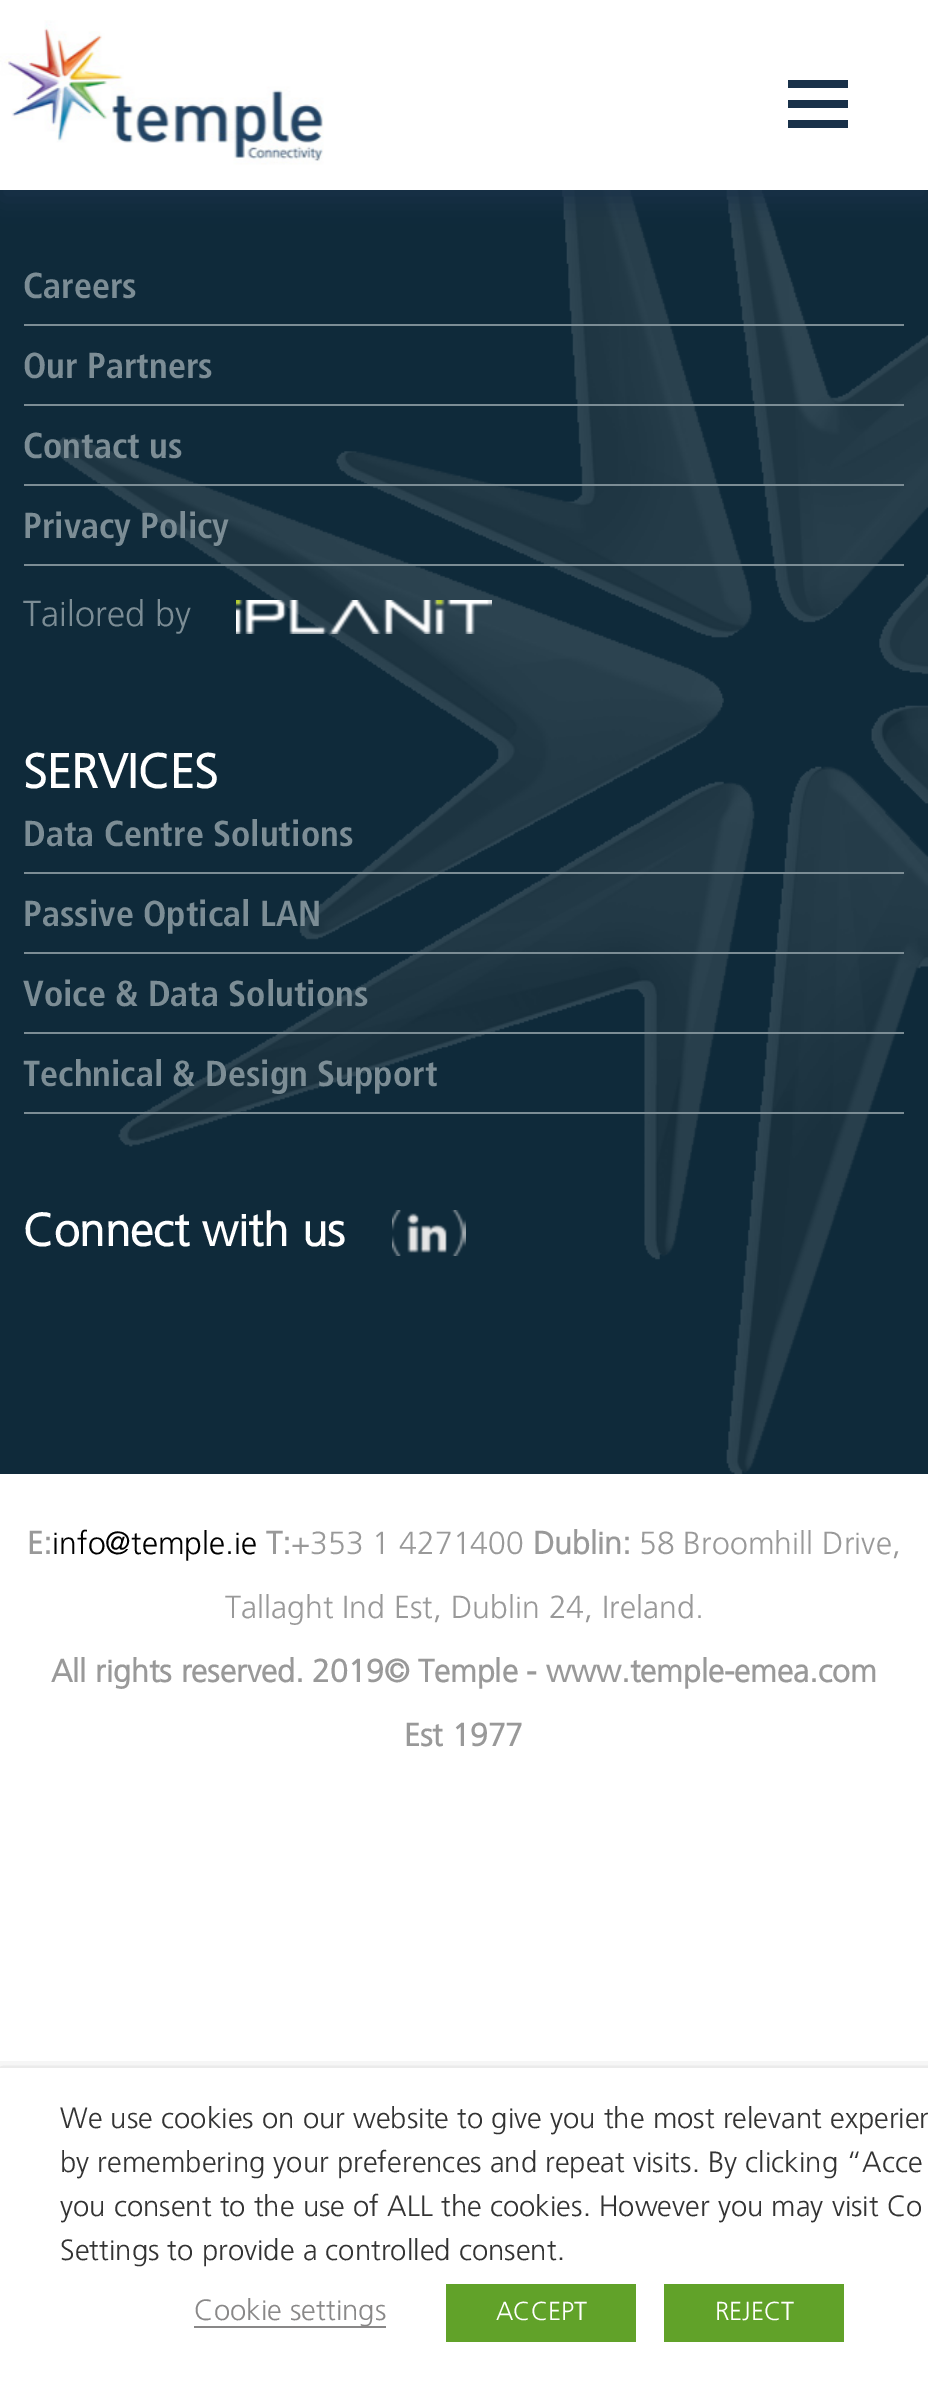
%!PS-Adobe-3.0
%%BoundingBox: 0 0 928 2382
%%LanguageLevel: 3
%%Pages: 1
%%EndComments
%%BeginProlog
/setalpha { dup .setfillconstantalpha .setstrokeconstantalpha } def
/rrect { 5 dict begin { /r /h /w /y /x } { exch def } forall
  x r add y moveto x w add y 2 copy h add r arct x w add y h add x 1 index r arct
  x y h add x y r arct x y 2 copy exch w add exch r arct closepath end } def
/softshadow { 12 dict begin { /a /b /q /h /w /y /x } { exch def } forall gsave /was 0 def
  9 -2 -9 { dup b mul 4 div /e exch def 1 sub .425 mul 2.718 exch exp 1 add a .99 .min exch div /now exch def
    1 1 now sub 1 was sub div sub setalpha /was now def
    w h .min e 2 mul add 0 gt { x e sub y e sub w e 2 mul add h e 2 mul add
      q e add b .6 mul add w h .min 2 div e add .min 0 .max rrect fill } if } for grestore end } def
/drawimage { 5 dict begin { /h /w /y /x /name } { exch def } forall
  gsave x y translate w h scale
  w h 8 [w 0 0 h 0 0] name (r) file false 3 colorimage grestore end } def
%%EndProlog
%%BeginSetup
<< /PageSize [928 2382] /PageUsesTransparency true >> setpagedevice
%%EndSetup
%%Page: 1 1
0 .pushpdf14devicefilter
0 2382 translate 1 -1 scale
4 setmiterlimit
1 setgray
0 0 928 2382 rectfill
0.059 0.165 0.227 setrgbcolor
0 190 928 1284 rectfill
(images/2.raw) 56 190 872 1284 drawimage
0.098 0.192 0.286 setrgbcolor
0 10 928 190 0 14 1 softshadow
1 setgray
0 0 928 190 rectfill
(images/1.raw) 0 20 324 145 drawimage
0.098 0.192 0.286 setrgbcolor
788 80 60 8 rectfill
788 100 60 8 rectfill
788 120 60 8 rectfill
0.486 0.553 0.584 setrgbcolor
24 324 880 2 rectfill
24 404 880 2 rectfill
24 484 880 2 rectfill
24 564 880 2 rectfill
(images/3.raw) 236 600 256 34 drawimage
24 872 880 2 rectfill
24 952 880 2 rectfill
24 1032 880 2 rectfill
24 1112 880 2 rectfill
(images/4.raw) 392 1210 74 46 drawimage
gsave
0 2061 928 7 rectclip
0 setgray
0 2078 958 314 0 10 0.5 softshadow
grestore
0.537 0.533 0.533 setrgbcolor
194 2326 192 2 rectfill
0.38 0.635 0.161 setrgbcolor
446 2284 190 58 rectfill
664 2284 180 58 rectfill
/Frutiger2-Bold [36 0 0 -36 0 0] selectfont
0.486 0.553 0.584 setrgbcolor
23 298 moveto (Careers) show
23 378 moveto (Our Partners) show
23 458 moveto (Contact us) show
23 538 moveto (Privacy Policy) show
/Frutiger-Light [36 0 0 -36 0 0] selectfont
23 626 moveto (Tailored by) show
/Frutiger-Bold [48 0 0 -48 0 0] selectfont
1 setgray
23 788 moveto (SERVICES) show
/Frutiger2-Bold [36 0 0 -36 0 0] selectfont
0.486 0.553 0.584 setrgbcolor
23 846 moveto (Data Centre Solutions) show
23 926 moveto (Passive Optical LAN) show
23 1006 moveto (Voice & Data Solutions) show
23 1086 moveto (Technical & Design Support) show
/Frutiger-Bold [46 0 0 -46 0 0] selectfont
1 setgray
23 1246 moveto (Connect with us) show
/Frutiger-Bold [32 0 0 -32 0 0] selectfont
0.6 setgray
27 1554 moveto (E:) show
/Frutiger-Light [32 0 0 -32 0 0] selectfont
0 setgray
52 1554 moveto (info@temple.ie) show
/Frutiger-Bold [32 0 0 -32 0 0] selectfont
0.6 setgray
266 1554 moveto (T:) show
/Frutiger-Light [32 0 0 -32 0 0] selectfont
291 1554 moveto (+353 1 4271400) show
/Frutiger-Bold [32 0 0 -32 0 0] selectfont
533 1554 moveto (Dublin:) show
/Frutiger-Light [32 0 0 -32 0 0] selectfont
639 1554 moveto (58 Broomhill Drive,) show
225 1618 moveto (Tallaght Ind Est, Dublin 24, Ireland.) show
/Frutiger-Bold [32 0 0 -32 0 0] selectfont
51 1682 moveto (All rights reserved. 2019© Temple - www.temple-emea.com) show
404 1746 moveto (Est 1977) show
/Frutiger-Light [29.3 0 0 -29.3 0 0] selectfont
0.2 setgray
60 2128 moveto (We use cookies on our website to give you the most relevant experien) show
60 2172 moveto (by remembering your preferences and repeat visits. By clicking “Acce) show
60 2216 moveto (you consent to the use of ALL the cookies. However you may visit Co) show
60 2260 moveto (Settings to provide a controlled consent.) show
0.537 0.533 0.533 setrgbcolor
194 2320 moveto (Cookie settings) show
/Frutiger-Light [26 0 0 -26 0 0] selectfont
1 setgray
496 2320 moveto (ACCEPT) show
715 2320 moveto (REJECT) show
.poppdf14devicefilter showpage
%%EOF
